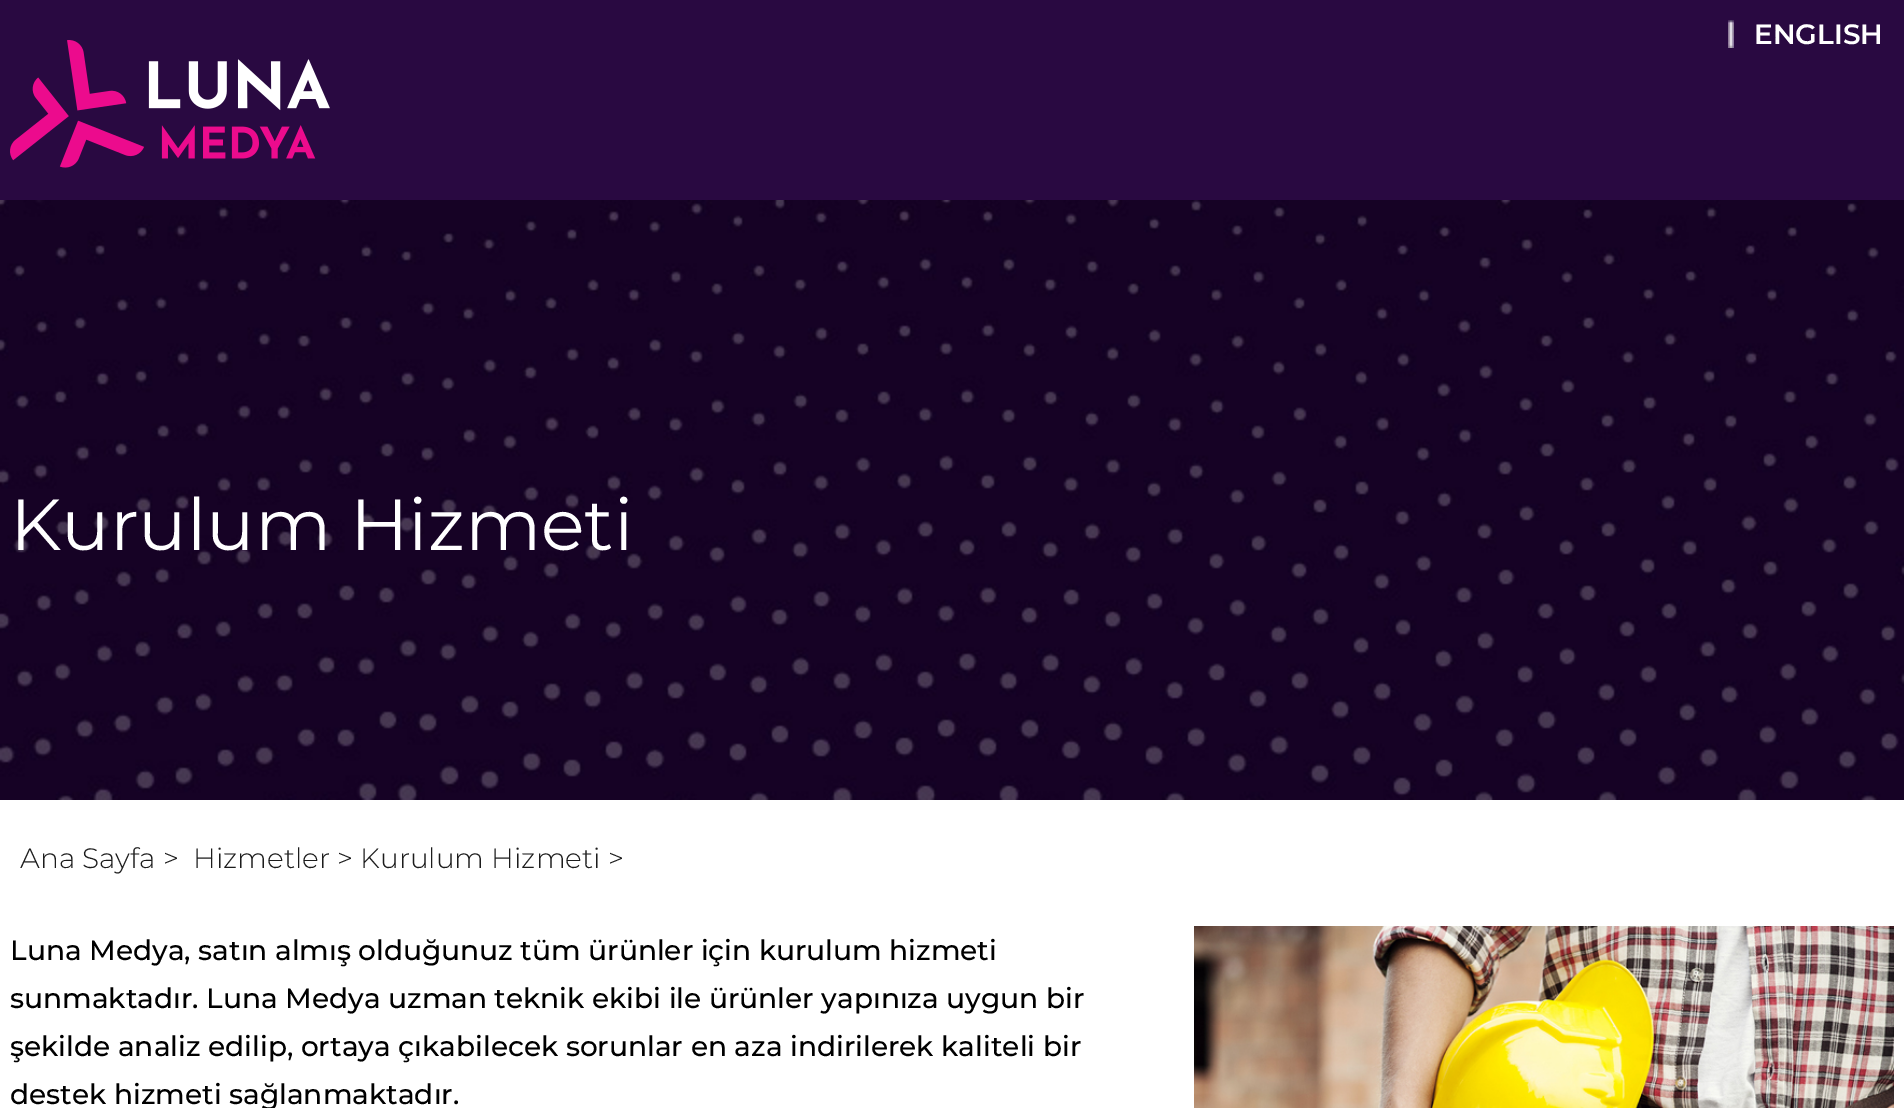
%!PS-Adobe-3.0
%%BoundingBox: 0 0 1904 1108
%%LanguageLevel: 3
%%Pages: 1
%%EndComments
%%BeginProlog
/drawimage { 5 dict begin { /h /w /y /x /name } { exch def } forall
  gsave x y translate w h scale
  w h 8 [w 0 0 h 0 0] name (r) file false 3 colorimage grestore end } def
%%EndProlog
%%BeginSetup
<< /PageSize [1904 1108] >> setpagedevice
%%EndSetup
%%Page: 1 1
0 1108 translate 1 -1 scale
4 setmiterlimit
1 setgray
0 0 1904 1108 rectfill
0.161 0.035 0.255 setrgbcolor
0 0 1904 200 rectfill
(images/1.raw) 1728 20 6 28 drawimage
(images/2.raw) 10 40 320 128 drawimage
(images/3.raw) 0 200 1904 600 drawimage
(images/4.raw) 1194 926 700 182 drawimage
/Montserrat-SemiBold [28 0 0 -28 0 0] selectfont
1 setgray
1754 44 moveto (ENGLISH) show
/Montserrat-Regular [72 0 0 -72 0 0] selectfont
10 550 moveto (Kurulum Hizmeti) show
/Montserrat-Light [28 0 0 -28 0 0] selectfont
0.11 setgray
20 868 moveto (Ana Sayfa >) show
193 868 moveto (Hizmetler > Kurulum Hizmeti >) show
/Montserrat-Medium [28 0 0 -28 0 0] selectfont
0 setgray
10 960 moveto (Luna Medya, satın almış olduğunuz tüm ürünler için kurulum hizmeti) show
10 1008 moveto (sunmaktadır. Luna Medya uzman teknik ekibi ile ürünler yapınıza uygun bir) show
10 1056 moveto (şekilde analiz edilip, ortaya çıkabilecek sorunlar en aza indirilerek kaliteli bir) show
10 1104 moveto (destek hizmeti sağlanmaktadır.) show
showpage
%%EOF
